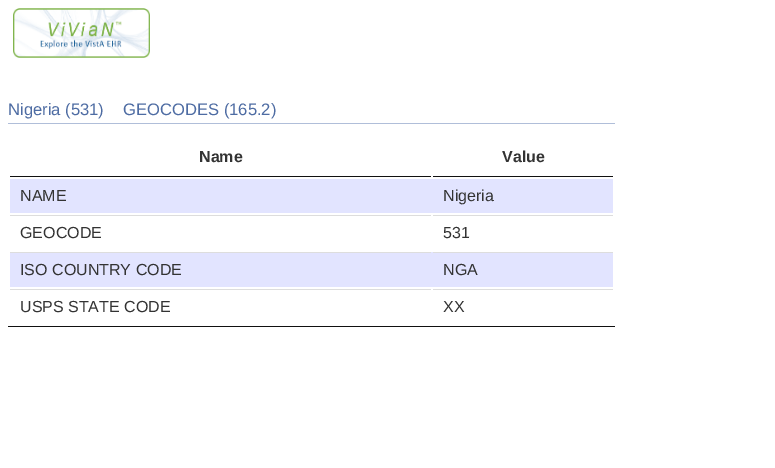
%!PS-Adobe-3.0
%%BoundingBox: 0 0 775 468
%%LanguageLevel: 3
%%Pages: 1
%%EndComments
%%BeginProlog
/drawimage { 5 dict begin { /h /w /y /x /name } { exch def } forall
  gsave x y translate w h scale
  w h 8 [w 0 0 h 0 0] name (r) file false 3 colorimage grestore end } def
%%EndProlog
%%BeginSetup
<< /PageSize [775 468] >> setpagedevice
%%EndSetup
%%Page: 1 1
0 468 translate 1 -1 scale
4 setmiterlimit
1 setgray
0 0 775 468 rectfill
(images/1.raw) 13 8 137 50 drawimage
0.69 0.745 0.851 setrgbcolor
8 123 607 1 rectfill
0.067 setgray
8 326 607 1 rectfill
10 176 421 1 rectfill
433 176 180 1 rectfill
0.886 0.894 1 setrgbcolor
10 179 603 34 rectfill
0.867 setgray
10 215 421 1 rectfill
433 215 180 1 rectfill
0.886 0.894 1 setrgbcolor
10 252 603 35 rectfill
0.867 setgray
10 252 421 1 rectfill
433 252 180 1 rectfill
10 289 421 1 rectfill
433 289 180 1 rectfill
/LiberationSans-Regular [16.6 0 0 -16.6 0 0] selectfont
0.306 0.424 0.639 setrgbcolor
8 115 moveto (Nigeria \(531\)) show
123 115 moveto (GEOCODES \(165.2\)) show
/LiberationSans-Bold [16 0 0 -16 0 0] selectfont
0.2 setgray
199 162 moveto (Name) show
502 162 moveto (Value) show
/LiberationSans-Regular [16 0 0 -16 0 0] selectfont
20 201 moveto (NAME) show
443 201 moveto (Nigeria) show
20 238 moveto (GEOCODE) show
443 238 moveto (531) show
20 275 moveto (ISO COUNTRY CODE) show
443 275 moveto (NGA) show
20 312 moveto (USPS STATE CODE) show
443 312 moveto (XX) show
showpage
%%EOF
